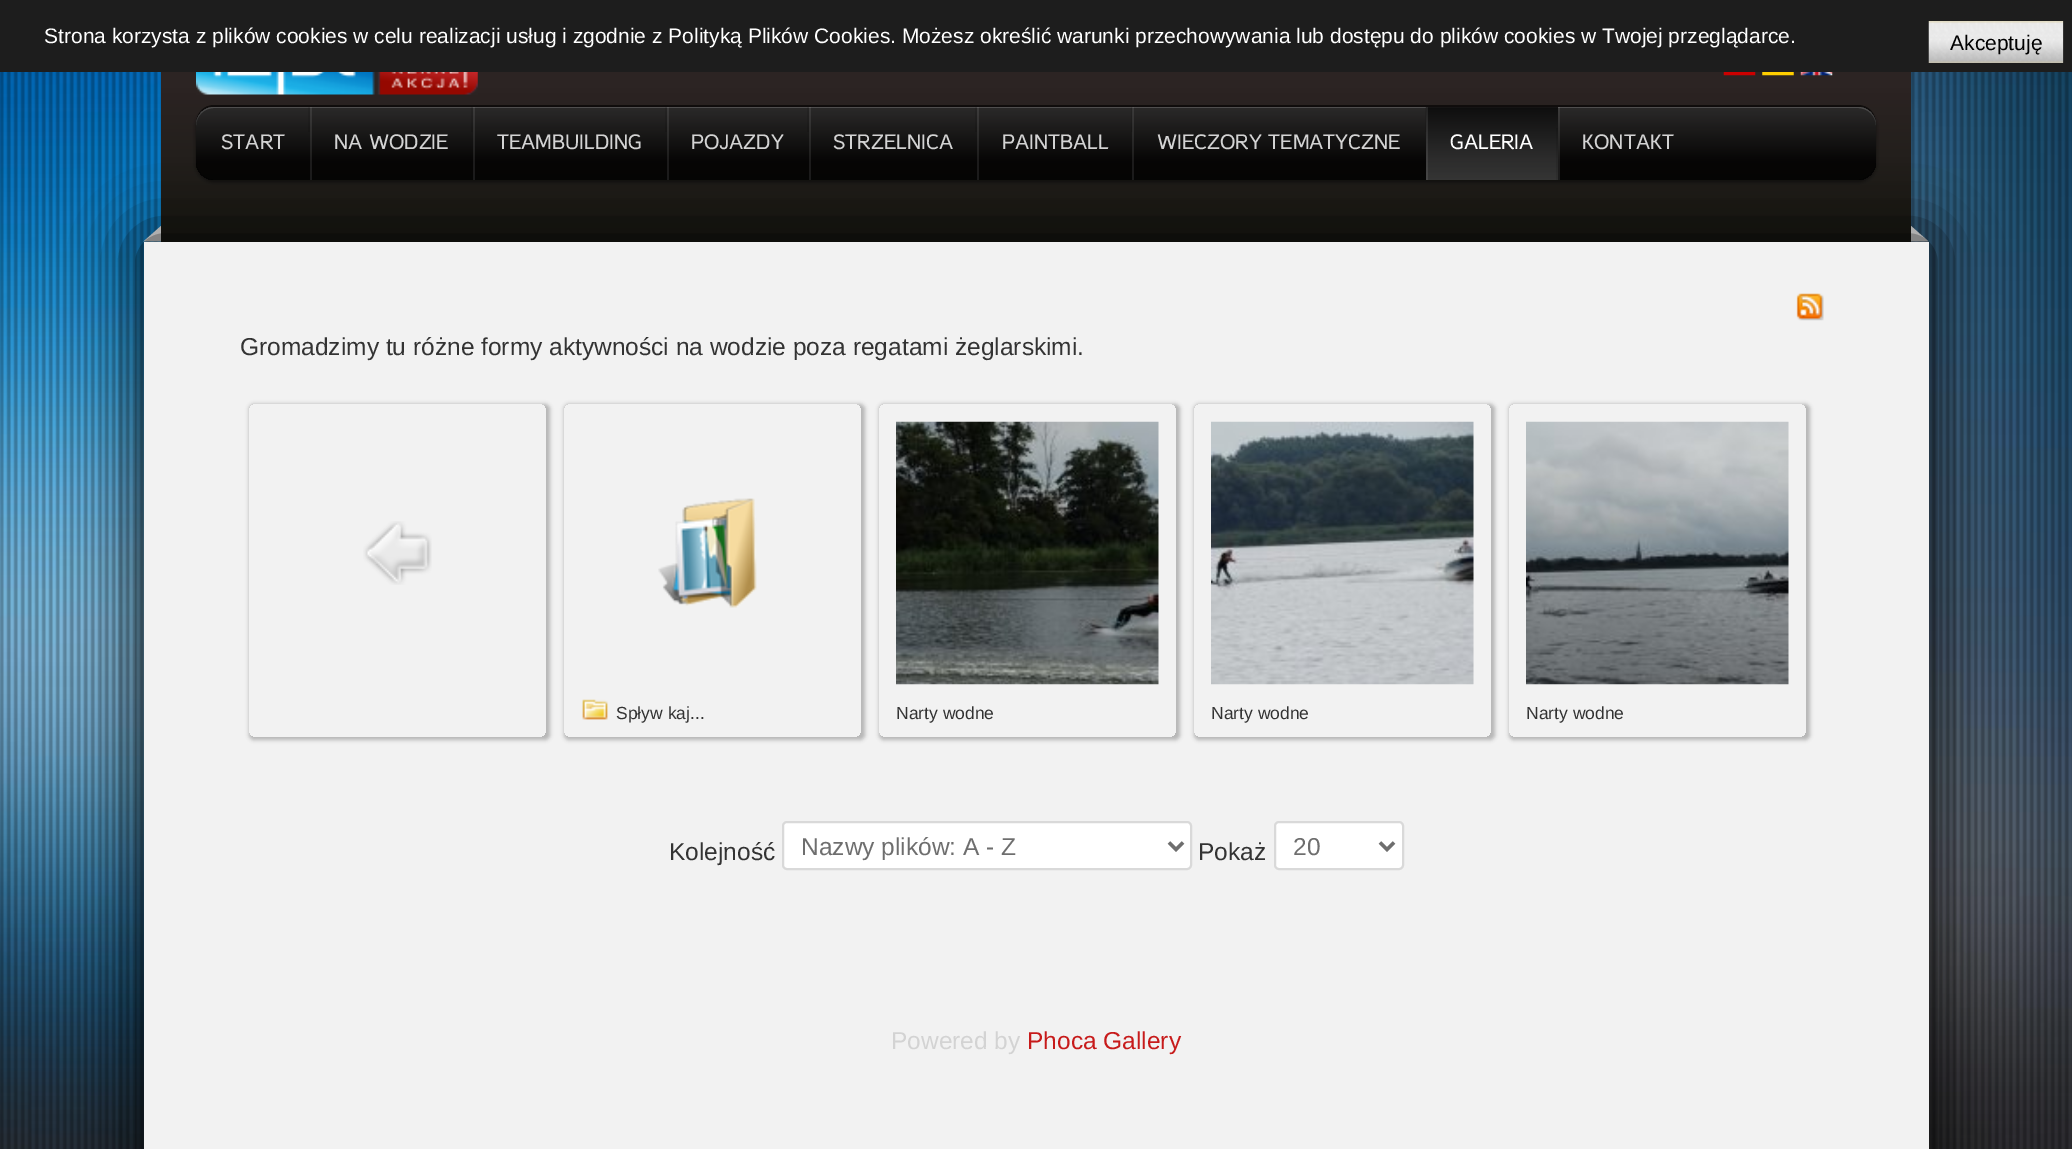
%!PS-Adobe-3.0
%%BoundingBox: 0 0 2072 1149
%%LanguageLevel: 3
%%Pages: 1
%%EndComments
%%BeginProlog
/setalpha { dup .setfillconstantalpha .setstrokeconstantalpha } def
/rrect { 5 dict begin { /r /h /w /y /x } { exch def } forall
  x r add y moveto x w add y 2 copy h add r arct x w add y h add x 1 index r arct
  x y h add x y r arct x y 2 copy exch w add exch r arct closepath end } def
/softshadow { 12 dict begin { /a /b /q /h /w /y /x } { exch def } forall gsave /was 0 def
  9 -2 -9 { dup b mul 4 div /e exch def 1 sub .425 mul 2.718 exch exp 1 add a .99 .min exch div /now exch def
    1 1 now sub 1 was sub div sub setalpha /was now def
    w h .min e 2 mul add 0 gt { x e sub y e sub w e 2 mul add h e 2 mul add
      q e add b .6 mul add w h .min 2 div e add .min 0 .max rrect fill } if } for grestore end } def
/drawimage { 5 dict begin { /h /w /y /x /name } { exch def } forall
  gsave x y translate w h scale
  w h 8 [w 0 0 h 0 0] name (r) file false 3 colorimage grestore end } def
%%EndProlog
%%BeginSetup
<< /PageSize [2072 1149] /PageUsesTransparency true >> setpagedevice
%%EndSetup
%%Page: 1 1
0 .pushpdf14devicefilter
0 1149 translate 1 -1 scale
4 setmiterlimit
1 setgray
0 0 2072 1149 rectfill
(images/1.raw) 0 72 2072 1077 drawimage
0.114 setgray
0 0 2072 72 rectfill
(images/2.raw) 1928 21 136 42 drawimage
(images/3.raw) 0 72 2072 1077 drawimage
gsave newpath 161 72 moveto 1911 72 lineto 1911 242 lineto 161 242 lineto closepath clip newpath
<< /ShadingType 2 /ColorSpace /DeviceRGB /Coords [1036 0 1036 242] /Extend [true true] /Function << /FunctionType 3 /Domain [0 1] /Functions [<< /FunctionType 2 /Domain [0 1] /C0 [0.173 0.141 0.137] /C1 [0.173 0.141 0.137] /N 1 >> << /FunctionType 2 /Domain [0 1] /C0 [0.173 0.141 0.137] /C1 [0.098 0.098 0.075] /N 1 >>] /Bounds [0.35] /Encode [0 1 0 1] >> >> shfill grestore
(images/4.raw) 196 72 282 23 drawimage
(images/5.raw) 1723 72 33 4 drawimage
(images/6.raw) 1762 72 32 4 drawimage
(images/7.raw) 1800 72 33 4 drawimage
gsave
newpath 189 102 moveto 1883 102 lineto 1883 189 lineto 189 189 lineto closepath 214 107 moveto 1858 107 lineto 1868 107 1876 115 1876 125 curveto 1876 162 lineto 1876 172 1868 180 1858 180 curveto 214 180 lineto 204 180 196 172 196 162 curveto 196 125 lineto 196 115 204 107 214 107 curveto closepath eoclip newpath
0 setgray
196 109 1680 73 18 2 0.5 softshadow
grestore
0.6 setalpha
0 setgray
newpath 214 105 moveto 203 105 196 114 196 124 curveto 196 115 204 107 214 107 curveto 1858 107 lineto 1868 107 1876 115 1876 124 curveto 1876 114 1869 105 1858 105 curveto closepath fill
1 setalpha
0.941 setgray
newpath 161 241.5 moveto 143.5 241.5 lineto 161 226 lineto closepath fill
newpath 1928.5 241.5 moveto 1911 241.5 lineto 1911 226 lineto closepath fill
0 setgray
144 242 1785 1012 0 35 0.9 softshadow
0.42 setalpha
196 107 1680 73 18 rrect fill
0.7 setalpha
gsave 196 107 1680 73 18 rrect clip newpath
<< /ShadingType 2 /ColorSpace /DeviceRGB /Coords [1036 107 1036 180] /Extend [true true] /Function << /FunctionType 3 /Domain [0 1] /Functions [<< /FunctionType 2 /Domain [0 1] /C0 [0.2 0.2 0.2] /C1 [0 0 0] /N 1 >> << /FunctionType 2 /Domain [0 1] /C0 [0 0 0] /C1 [0 0 0] /N 1 >>] /Bounds [0.75] /Encode [0 1 0 1] >> >> shfill grestore
0.2 setalpha
0.882 setgray
newpath 214 108 moveto 1858 108 lineto 1868 108 1876 116 1876 126 curveto 1876 116 1869 107 1858 107 curveto 214 107 lineto 203 107 196 116 196 126 curveto 196 116 204 108 214 108 curveto closepath fill
0.1 setalpha
0 setgray
308 107 2 25 rectfill
471 107 2 25 rectfill
0.882 setgray
310 107 2 73 rectfill
0 setgray
665 107 2 25 rectfill
0.882 setgray
473 107 2 73 rectfill
0 setgray
807 107 2 25 rectfill
0.882 setgray
667 107 2 73 rectfill
0 setgray
975 107 2 25 rectfill
0.882 setgray
809 107 2 73 rectfill
0 setgray
1131 107 2 25 rectfill
0.882 setgray
977 107 2 73 rectfill
0 setgray
1425 107 2 25 rectfill
0.882 setgray
1132 107 2 73 rectfill
0.42 setalpha
0.212 setgray
1426 107 132 73 rectfill
0.7 setalpha
gsave newpath 1426 107 moveto 1558 107 lineto 1558 180 lineto 1426 180 lineto closepath clip newpath
<< /ShadingType 2 /ColorSpace /DeviceRGB /Coords [1492 107 1492 180] /Extend [true true] /Function << /FunctionType 3 /Domain [0 1] /Functions [<< /FunctionType 2 /Domain [0 1] /C0 [0 0 0] /C1 [0.2 0.2 0.2] /N 1 >> << /FunctionType 2 /Domain [0 1] /C0 [0.2 0.2 0.2] /C1 [0.251 0.251 0.251] /N 1 >>] /Bounds [0.7] /Encode [0 1 0 1] >> >> shfill grestore
0.1 setalpha
0 setgray
1556 128 2 52 rectfill
0.882 setgray
1426 107 2 73 rectfill
1558 107 2 73 rectfill
1 setalpha
0.949 setgray
144 242 1785 907 rectfill
(images/8.raw) 1796 293 28 28 drawimage
gsave
newpath 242 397 moveto 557 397 lineto 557 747 lineto 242 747 lineto closepath 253 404 moveto 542 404 lineto 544 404 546 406 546 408 curveto 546 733 lineto 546 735 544 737 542 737 curveto 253 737 lineto 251 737 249 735 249 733 curveto 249 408 lineto 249 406 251 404 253 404 curveto closepath eoclip newpath
0.471 setgray
249 404 301 336 5 2 0.5 softshadow
grestore
(images/9.raw) 363 521 69 64 drawimage
gsave
newpath 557 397 moveto 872 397 lineto 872 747 lineto 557 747 lineto closepath 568 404 moveto 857 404 lineto 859 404 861 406 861 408 curveto 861 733 lineto 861 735 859 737 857 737 curveto 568 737 lineto 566 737 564 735 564 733 curveto 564 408 lineto 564 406 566 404 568 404 curveto closepath eoclip newpath
0.471 setgray
564 404 301 336 5 2 0.5 softshadow
grestore
(images/10.raw) 658 498 99 110 drawimage
(images/11.raw) 582 699 26 21 drawimage
gsave
newpath 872 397 moveto 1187 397 lineto 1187 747 lineto 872 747 lineto closepath 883 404 moveto 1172 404 lineto 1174 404 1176 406 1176 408 curveto 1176 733 lineto 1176 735 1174 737 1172 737 curveto 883 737 lineto 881 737 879 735 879 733 curveto 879 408 lineto 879 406 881 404 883 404 curveto closepath eoclip newpath
0.471 setgray
879 404 301 336 5 2 0.5 softshadow
grestore
(images/12.raw) 896 421 263 264 drawimage
gsave
newpath 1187 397 moveto 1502 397 lineto 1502 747 lineto 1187 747 lineto closepath 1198 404 moveto 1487 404 lineto 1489 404 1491 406 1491 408 curveto 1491 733 lineto 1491 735 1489 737 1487 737 curveto 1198 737 lineto 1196 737 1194 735 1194 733 curveto 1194 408 lineto 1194 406 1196 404 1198 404 curveto closepath eoclip newpath
0.471 setgray
1194 404 301 336 5 2 0.5 softshadow
grestore
(images/13.raw) 1211 421 263 264 drawimage
gsave
newpath 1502 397 moveto 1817 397 lineto 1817 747 lineto 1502 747 lineto closepath 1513 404 moveto 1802 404 lineto 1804 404 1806 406 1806 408 curveto 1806 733 lineto 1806 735 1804 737 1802 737 curveto 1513 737 lineto 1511 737 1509 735 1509 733 curveto 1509 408 lineto 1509 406 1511 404 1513 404 curveto closepath eoclip newpath
0.471 setgray
1509 404 301 336 5 2 0.5 softshadow
grestore
(images/14.raw) 1526 421 263 264 drawimage
1 setgray
783 822 408 47 4 rrect gsave fill grestore
0.851 setgray
2 setlinewidth
stroke
0.431 setgray
3.5 setlinewidth
newpath 1169 842.5 moveto 1176 849.5 lineto 1183 842.5 lineto stroke
1 setgray
1275 822 128 47 4 rrect gsave fill grestore
0.851 setgray
2 setlinewidth
stroke
0.431 setgray
3.5 setlinewidth
newpath 1380 842.5 moveto 1387 849.5 lineto 1394 842.5 lineto stroke
/LiberationSans-Regular [21 0 0 -21 0 0] selectfont
1 setgray
44 43 moveto (Strona korzysta z plików cookies w celu realizacji usług i zgodnie z Polityką Plików Cookies. Możesz określić warunki przechowywania lub dostępu do plików cookies w Twojej przeglądarce.) show
0 setgray
1950 50 moveto (Akceptuję) show
/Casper-Regular [21 0 0 -21 0 0] selectfont
0.827 setgray
221 149 moveto (START) show
334 149 moveto (NA WODZIE) show
497 149 moveto (TEAMBUILDING) show
691 149 moveto (POJAZDY) show
833 149 moveto (STRZELNICA) show
1002 149 moveto (PAINTBALL) show
1157 149 moveto (WIECZORY TEMATYCZNE) show
1 setgray
1450 149 moveto (GALERIA) show
0.827 setgray
1582 149 moveto (KONTAKT) show
/LiberationSans-Regular [24.5 0 0 -24.5 0 0] selectfont
0.2 setgray
240 355 moveto (Gromadzimy tu różne formy aktywności na wodzie poza regatami żeglarskimi.) show
/LiberationSans-Regular [17.5 0 0 -17.5 0 0] selectfont
616 719 moveto (Spływ kaj...) show
896 719 moveto (Narty wodne) show
1211 719 moveto (Narty wodne) show
1526 719 moveto (Narty wodne) show
/LiberationSans-Regular [24.5 0 0 -24.5 0 0] selectfont
669 860 moveto (Kolejność) show
0.431 setgray
801 855 moveto (Nazwy plików: A - Z) show
0.2 setgray
1198 860 moveto (Pokaż) show
0.431 setgray
1293 855 moveto (20) show
0.827 setgray
891 1049 moveto (Powered by) show
0.78 0.106 0.106 setrgbcolor
1027 1049 moveto (Phoca Gallery) show
.poppdf14devicefilter showpage
%%EOF
